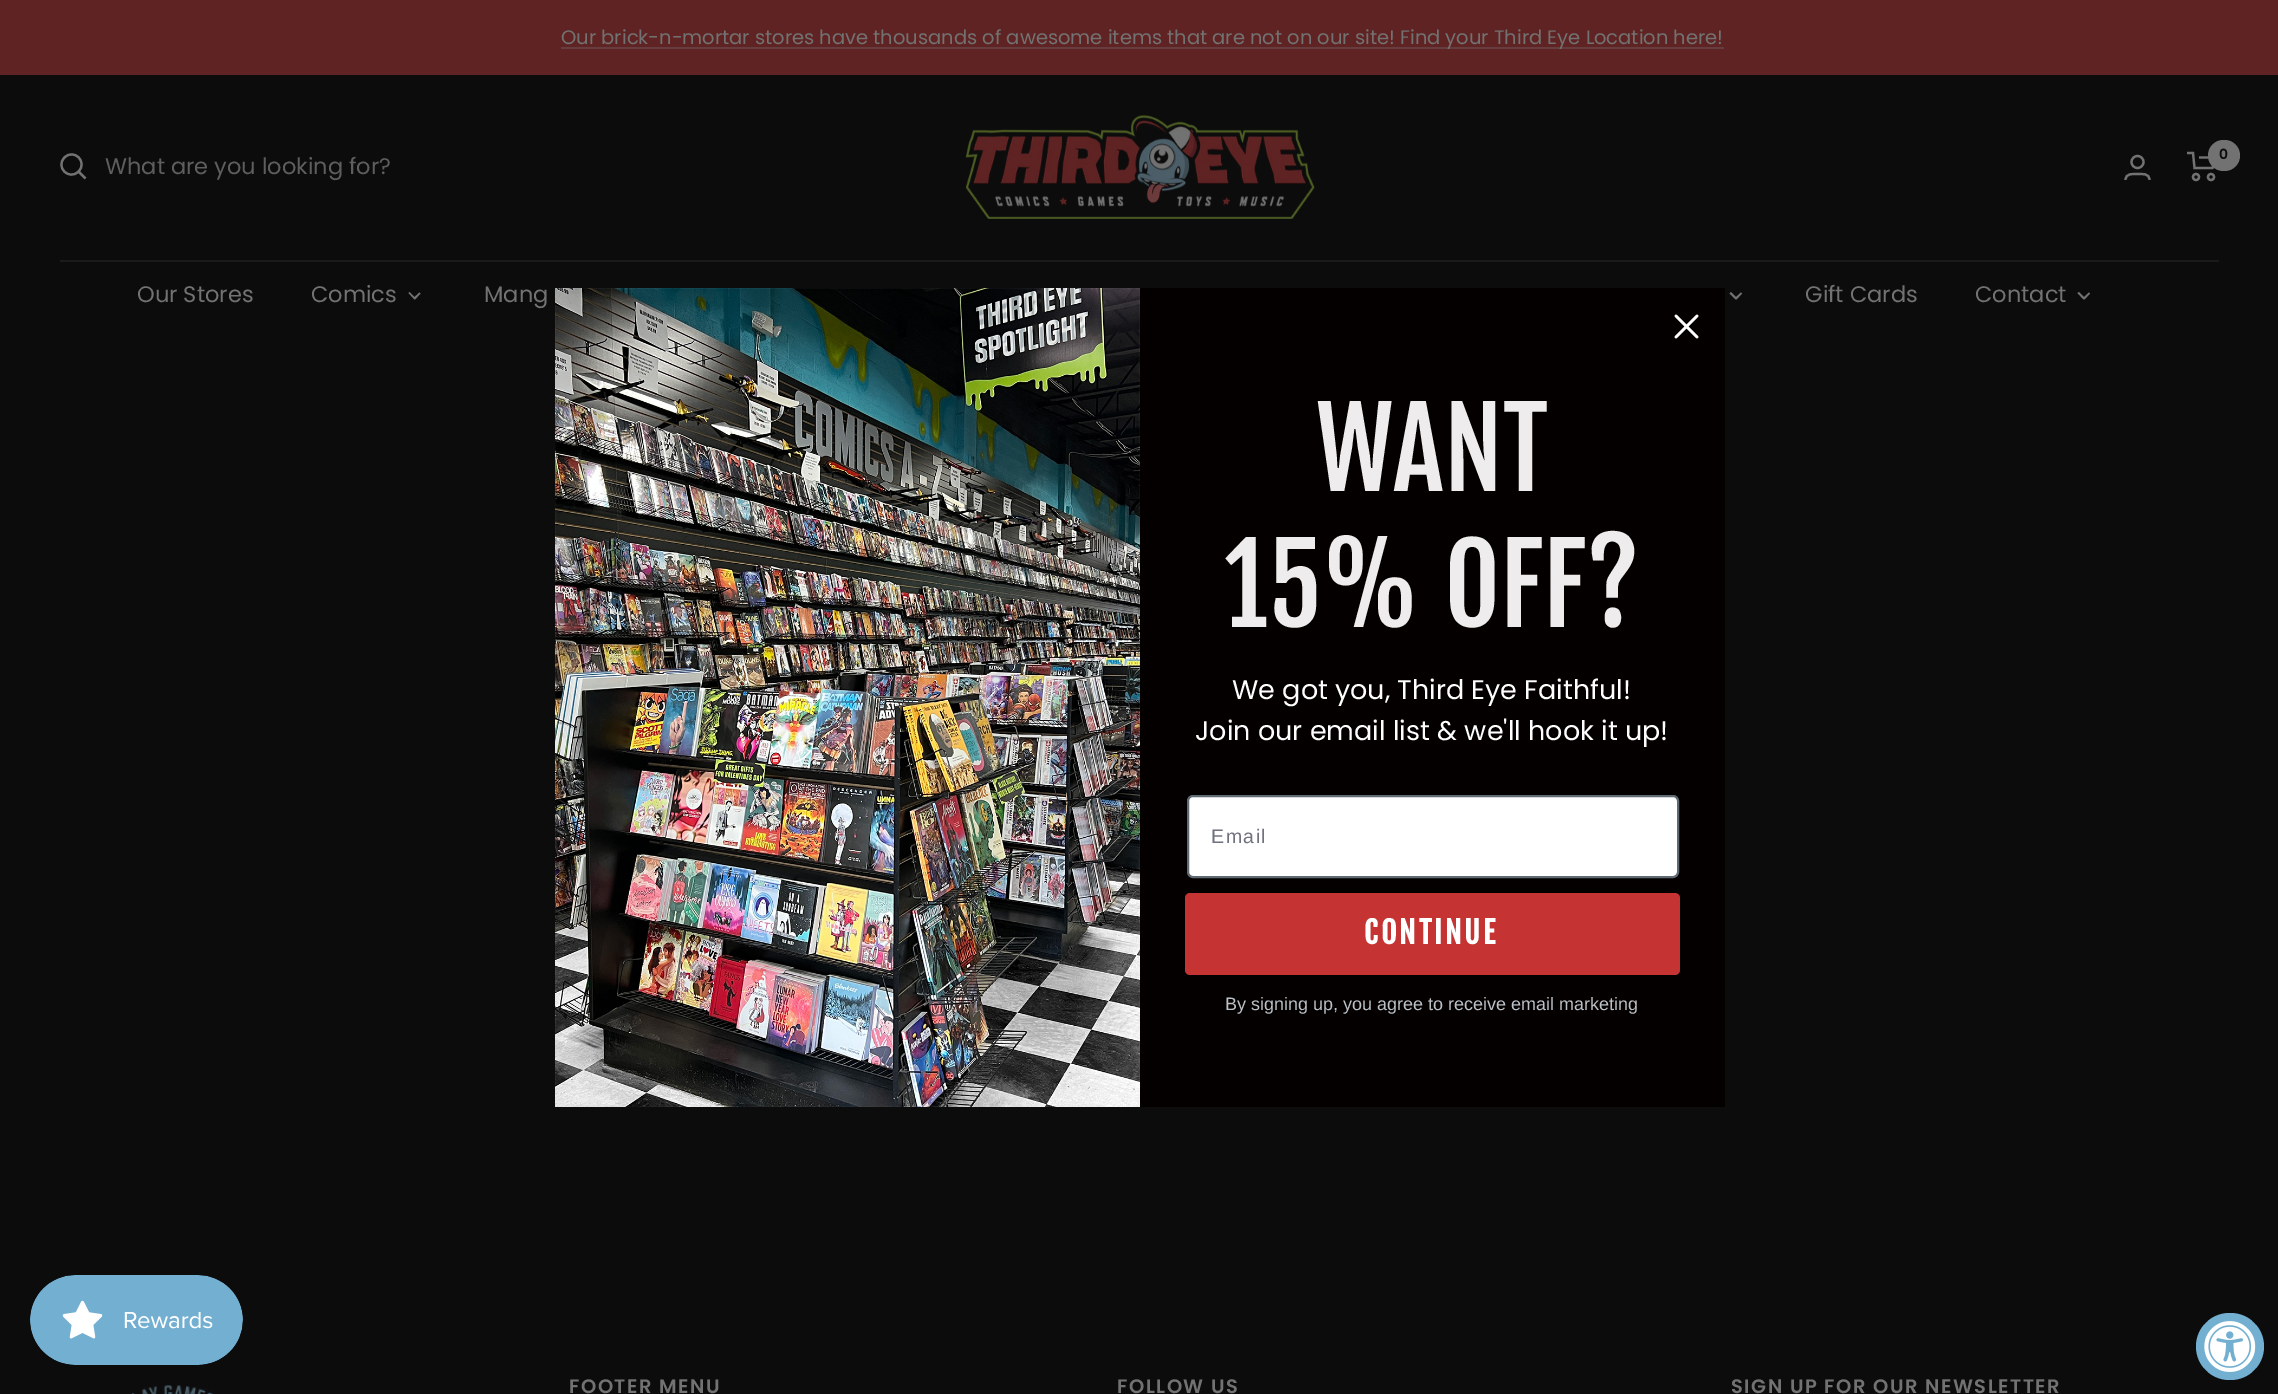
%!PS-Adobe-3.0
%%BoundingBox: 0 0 2278 1394
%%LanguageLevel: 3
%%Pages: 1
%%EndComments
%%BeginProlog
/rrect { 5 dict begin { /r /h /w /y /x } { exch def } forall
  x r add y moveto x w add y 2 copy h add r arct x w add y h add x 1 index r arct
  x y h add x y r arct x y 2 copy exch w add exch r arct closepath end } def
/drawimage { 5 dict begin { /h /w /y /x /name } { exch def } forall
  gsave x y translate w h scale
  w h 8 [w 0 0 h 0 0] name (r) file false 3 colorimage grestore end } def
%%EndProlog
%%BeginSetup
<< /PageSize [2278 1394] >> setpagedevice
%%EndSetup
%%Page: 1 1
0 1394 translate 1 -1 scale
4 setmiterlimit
0.047 setgray
0 0 2278 1394 rectfill
0.376 0.137 0.137 setrgbcolor
0 0 2278 75 rectfill
0.4 0.243 0.247 setrgbcolor
561 47 1163 2 rectfill
(images/1.raw) 965 115 350 104 drawimage
0.447 setgray
2.2 setlinewidth
newpath 2137.5 162 6 0 360 arc closepath stroke
newpath 2125.5 180 moveto 2125.5 173 2133 174 2137.5 174 curveto 2142 174 2149.5 173 2149.5 180 curveto stroke
newpath 2187 153 moveto 2193 153 lineto 2194.5 168 lineto 2212.5 168 lineto 2215.5 157.5 lineto 2199 157.5 lineto stroke
newpath 2196 177 3 0 360 arc closepath stroke
newpath 2211 177 3 0 360 arc closepath stroke
2208 140 32 31 15.5 rrect fill
newpath 78.5 171.5 moveto 88 162 74 148 64.5 157.5 curveto 55 167 69 181 78.5 171.5 curveto closepath 78.5 171.5 moveto 85.5 178.5 lineto stroke
0.106 setgray
60 260 2159 2 rectfill
0.447 setgray
newpath 419.5 292.5 moveto 420.5 293.5 lineto 415 299.5 lineto 413.5 298 lineto closepath fill
newpath 409.5 292 moveto 415.5 298 lineto 414.5 299.5 lineto 408.5 293 lineto closepath fill
newpath 1741 292.5 moveto 1742 293.5 lineto 1736.5 299.5 lineto 1735 298 lineto closepath fill
newpath 1731 292 moveto 1737 298 lineto 1735.5 299.5 lineto 1729.5 293.5 lineto closepath fill
newpath 2089 292.5 moveto 2090 293.5 lineto 2084.5 299.5 lineto 2083 298 lineto closepath fill
newpath 2079 292 moveto 2085 298 lineto 2083.5 299.5 lineto 2077.5 293 lineto closepath fill
0.02 0 0 setrgbcolor
1140 288 585 819 rectfill
1 setgray
2.6 setlinewidth
1 setlinecap
1 setlinejoin
newpath 1676 316 moveto 1697 337 lineto 1676 337 moveto 1697 316 lineto closepath stroke
(images/2.raw) 555 288 585 819 drawimage
1188 796 490 81 5 rrect gsave fill grestore
0.376 0.416 0.447 setrgbcolor
2 setlinewidth
0 setlinecap
0 setlinejoin
stroke
0.773 0.2 0.2 setrgbcolor
1185 893 495 82 5 rrect fill
(images/3.raw) 30 1275 213 90 drawimage
0.451 0.686 0.82 setrgbcolor
2196 1313 68 67 33.5 rrect fill
(images/4.raw) 2204 1321 52 51 drawimage
(images/5.raw) 131 1383 83 11 drawimage
/Poppins-Regular [19.5 0 0 -19.5 0 0] selectfont
0.447 setgray
561 44 moveto (Our brick-n-mortar stores have thousands of awesome items that are not on our site! Find your Third Eye Location here!) show
/Poppins-SemiBold [14 0 0 -14 0 0] selectfont
0.047 setgray
2219 159 moveto (0) show
/Poppins-Regular [22.5 0 0 -22.5 0 0] selectfont
0.369 setgray
105 174 moveto (What are you looking for?) show
0.447 setgray
137 302 moveto (Our Stores) show
311 302 moveto (Comics) show
484 302 moveto (Mang) show
1805 302 moveto (Gift Cards) show
1975 302 moveto (Contact) show
/FjallaOne-Regular [108 0 0 -108 0 0] selectfont
0.933 0.925 0.925 setrgbcolor
1316 491 moveto (WANT) show
1224 627 moveto (15% OFF?) show
/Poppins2-Regular [27 0 0 -27 0 0] selectfont
1 setgray
1232 699 moveto (We got you, Third Eye Faithful!) show
1195 740 moveto (Join our email list & we'll hook it up!) show
/LiberationSans-Regular [19.5 0 0 -19.5 0 0] selectfont
0.443 0.447 0.498 setrgbcolor
1211 843 moveto 1.5 0 (Email) ashow
/FjallaOne-Bold [30 0 0 -30 0 0] selectfont
1 setgray
1364 944 moveto 3 0 (CONTINUE) ashow
/LiberationSans-Regular [18 0 0 -18 0 0] selectfont
0.729 0.757 0.78 setrgbcolor
1225 1010 moveto (By signing up, you agree to receive email marketing) show
/Poppins-SemiBold [19.5 0 0 -19.5 0 0] selectfont
0.447 setgray
569 1393 moveto 1.5 0 (FOOTER MENU) ashow
1117 1393 moveto 1.5 0 (FOLLOW US) ashow
1731 1393 moveto 1.5 0 (SIGN UP FOR OUR NEWSLETTER) ashow
showpage
%%EOF
